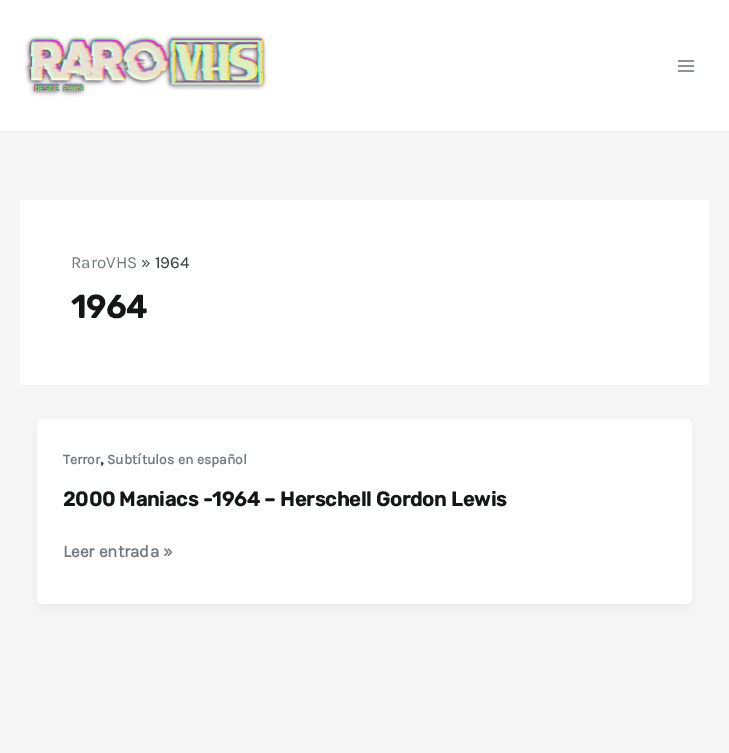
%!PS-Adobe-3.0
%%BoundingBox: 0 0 729 753
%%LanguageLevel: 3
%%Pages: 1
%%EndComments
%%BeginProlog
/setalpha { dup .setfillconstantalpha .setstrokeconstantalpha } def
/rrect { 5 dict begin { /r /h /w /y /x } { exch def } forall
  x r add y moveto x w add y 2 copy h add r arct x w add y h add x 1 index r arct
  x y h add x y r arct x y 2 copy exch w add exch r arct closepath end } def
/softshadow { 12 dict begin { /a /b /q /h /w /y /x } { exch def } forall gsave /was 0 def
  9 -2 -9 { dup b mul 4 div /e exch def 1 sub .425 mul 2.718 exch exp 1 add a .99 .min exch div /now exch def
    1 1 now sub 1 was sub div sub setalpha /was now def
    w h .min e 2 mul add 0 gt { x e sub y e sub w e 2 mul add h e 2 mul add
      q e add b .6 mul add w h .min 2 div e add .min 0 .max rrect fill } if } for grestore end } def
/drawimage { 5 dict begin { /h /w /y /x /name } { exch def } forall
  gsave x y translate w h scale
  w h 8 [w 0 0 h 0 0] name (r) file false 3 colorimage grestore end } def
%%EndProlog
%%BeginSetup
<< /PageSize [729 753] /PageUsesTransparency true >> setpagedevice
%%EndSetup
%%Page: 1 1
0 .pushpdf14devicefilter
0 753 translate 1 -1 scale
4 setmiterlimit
0.965 setgray
0 0 729 753 rectfill
1 setgray
0 0 729 131 rectfill
0.945 0.941 0.941 setrgbcolor
0 131 729 1 rectfill
(images/1.raw) 24 34 243 63 drawimage
(images/2.raw) 677 60 18 12 drawimage
1 setgray
20 200 689 185 rectfill
0.063 0.094 0.157 setrgbcolor
39 427 651 181 4 7.5 0.05 softshadow
1 setgray
37 419 655 185 6 rrect fill
/Karla-Regular [17 0 0 -17 0 0] selectfont
0.451 0.471 0.502 setrgbcolor
71 268 moveto (RaroVHS) show
0.224 0.235 0.251 setrgbcolor
141 268 moveto (» 1964) show
/Rubik-Bold [32 0 0 -32 0 0] selectfont
0.082 0.086 0.086 setrgbcolor
71 318 moveto (1964) show
/Karla-Bold [14 0 0 -14 0 0] selectfont
0.451 0.471 0.502 setrgbcolor
63 464 moveto (Terror) show
/Karla-Bold [17 0 0 -17 0 0] selectfont
0.224 0.235 0.251 setrgbcolor
100 464 moveto (,) show
/Karla-Bold [14 0 0 -14 0 0] selectfont
0.451 0.471 0.502 setrgbcolor
107 464 moveto (Subtítulos en español) show
/Rubik-Bold [20 0 0 -20 0 0] selectfont
0.082 0.086 0.086 setrgbcolor
63 506 moveto (2000 Maniacs -1964 – Herschell Gordon Lewis) show
/Karla-Bold [17 0 0 -17 0 0] selectfont
0.451 0.471 0.502 setrgbcolor
63 557 moveto (Leer entrada ») show
.poppdf14devicefilter showpage
%%EOF
